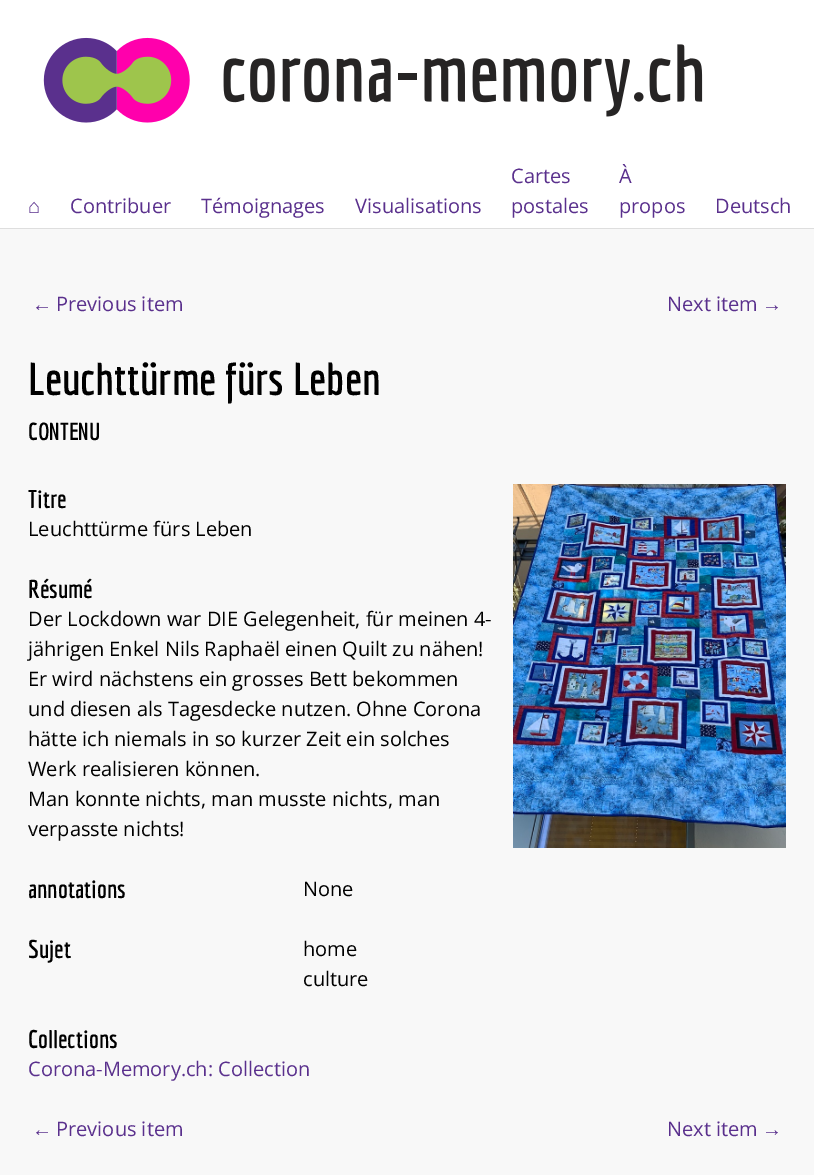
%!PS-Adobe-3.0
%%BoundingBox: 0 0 814 1175
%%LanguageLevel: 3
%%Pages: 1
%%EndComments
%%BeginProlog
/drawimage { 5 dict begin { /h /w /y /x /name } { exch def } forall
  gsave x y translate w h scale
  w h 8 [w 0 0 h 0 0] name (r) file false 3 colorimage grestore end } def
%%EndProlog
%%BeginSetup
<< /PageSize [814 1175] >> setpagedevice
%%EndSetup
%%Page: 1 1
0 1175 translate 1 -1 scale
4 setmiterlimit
0.973 setgray
0 0 814 1175 rectfill
1 setgray
0 0 814 228 rectfill
0.871 setgray
0 228 814 1 rectfill
(images/1.raw) 43 37 660 86 drawimage
(images/2.raw) 513 484 273 364 drawimage
/LiberationSans-Regular [20 0 0 -20 0 0] selectfont
0.353 0.188 0.553 setrgbcolor
28 213 moveto (⌂) show
/OpenSans-Regular [20 0 0 -20 0 0] selectfont
70 213 moveto (Contribuer) show
201 213 moveto (Témoignages) show
355 213 moveto (Visualisations) show
511 183 moveto (Cartes) show
511 213 moveto (postales) show
619 183 moveto (À) show
619 213 moveto (propos) show
715 213 moveto (Deutsch) show
/LiberationSans-Regular [20 0 0 -20 0 0] selectfont
32 311 moveto (←) show
/OpenSans-Regular [20 0 0 -20 0 0] selectfont
56 311 moveto (Previous item) show
667 311 moveto (Next item) show
/LiberationSans-Regular [20 0 0 -20 0 0] selectfont
762 311 moveto (→) show
/Economica-Bold [45 0 0 -45 0 0] selectfont
0 setgray
28 395 moveto (Leuchttürme fürs Leben) show
/Economica-Bold [24 0 0 -24 0 0] selectfont
28 440 moveto (CONTENU) show
/Economica-Bold [25 0 0 -25 0 0] selectfont
28 508 moveto (Titre) show
/OpenSans-Regular [20 0 0 -20 0 0] selectfont
28 536 moveto (Leuchttürme fürs Leben) show
/Economica-Bold [25 0 0 -25 0 0] selectfont
28 598 moveto (Résumé) show
/OpenSans-Regular [20 0 0 -20 0 0] selectfont
28 626 moveto (Der Lockdown war DIE Gelegenheit, für meinen 4-) show
28 656 moveto (jährigen Enkel Nils Raphaël einen Quilt zu nähen!) show
28 686 moveto (Er wird nächstens ein grosses Bett bekommen) show
28 716 moveto (und diesen als Tagesdecke nutzen. Ohne Corona) show
28 746 moveto (hätte ich niemals in so kurzer Zeit ein solches) show
28 776 moveto (Werk realisieren können.) show
28 806 moveto (Man konnte nichts, man musste nichts, man) show
28 836 moveto (verpasste nichts!) show
/Economica-Bold [25 0 0 -25 0 0] selectfont
28 898 moveto (annotations) show
/OpenSans-Regular [20 0 0 -20 0 0] selectfont
303 896 moveto (None) show
/Economica-Bold [25 0 0 -25 0 0] selectfont
28 958 moveto (Sujet) show
/OpenSans-Regular [20 0 0 -20 0 0] selectfont
303 956 moveto (home) show
303 986 moveto (culture) show
/Economica-Bold [25 0 0 -25 0 0] selectfont
28 1048 moveto (Collections) show
/OpenSans-Regular [20 0 0 -20 0 0] selectfont
0.353 0.188 0.553 setrgbcolor
28 1076 moveto (Corona-Memory.ch: Collection) show
/LiberationSans-Regular [20 0 0 -20 0 0] selectfont
32 1136 moveto (←) show
/OpenSans-Regular [20 0 0 -20 0 0] selectfont
56 1136 moveto (Previous item) show
667 1136 moveto (Next item) show
/LiberationSans-Regular [20 0 0 -20 0 0] selectfont
762 1136 moveto (→) show
showpage
%%EOF
